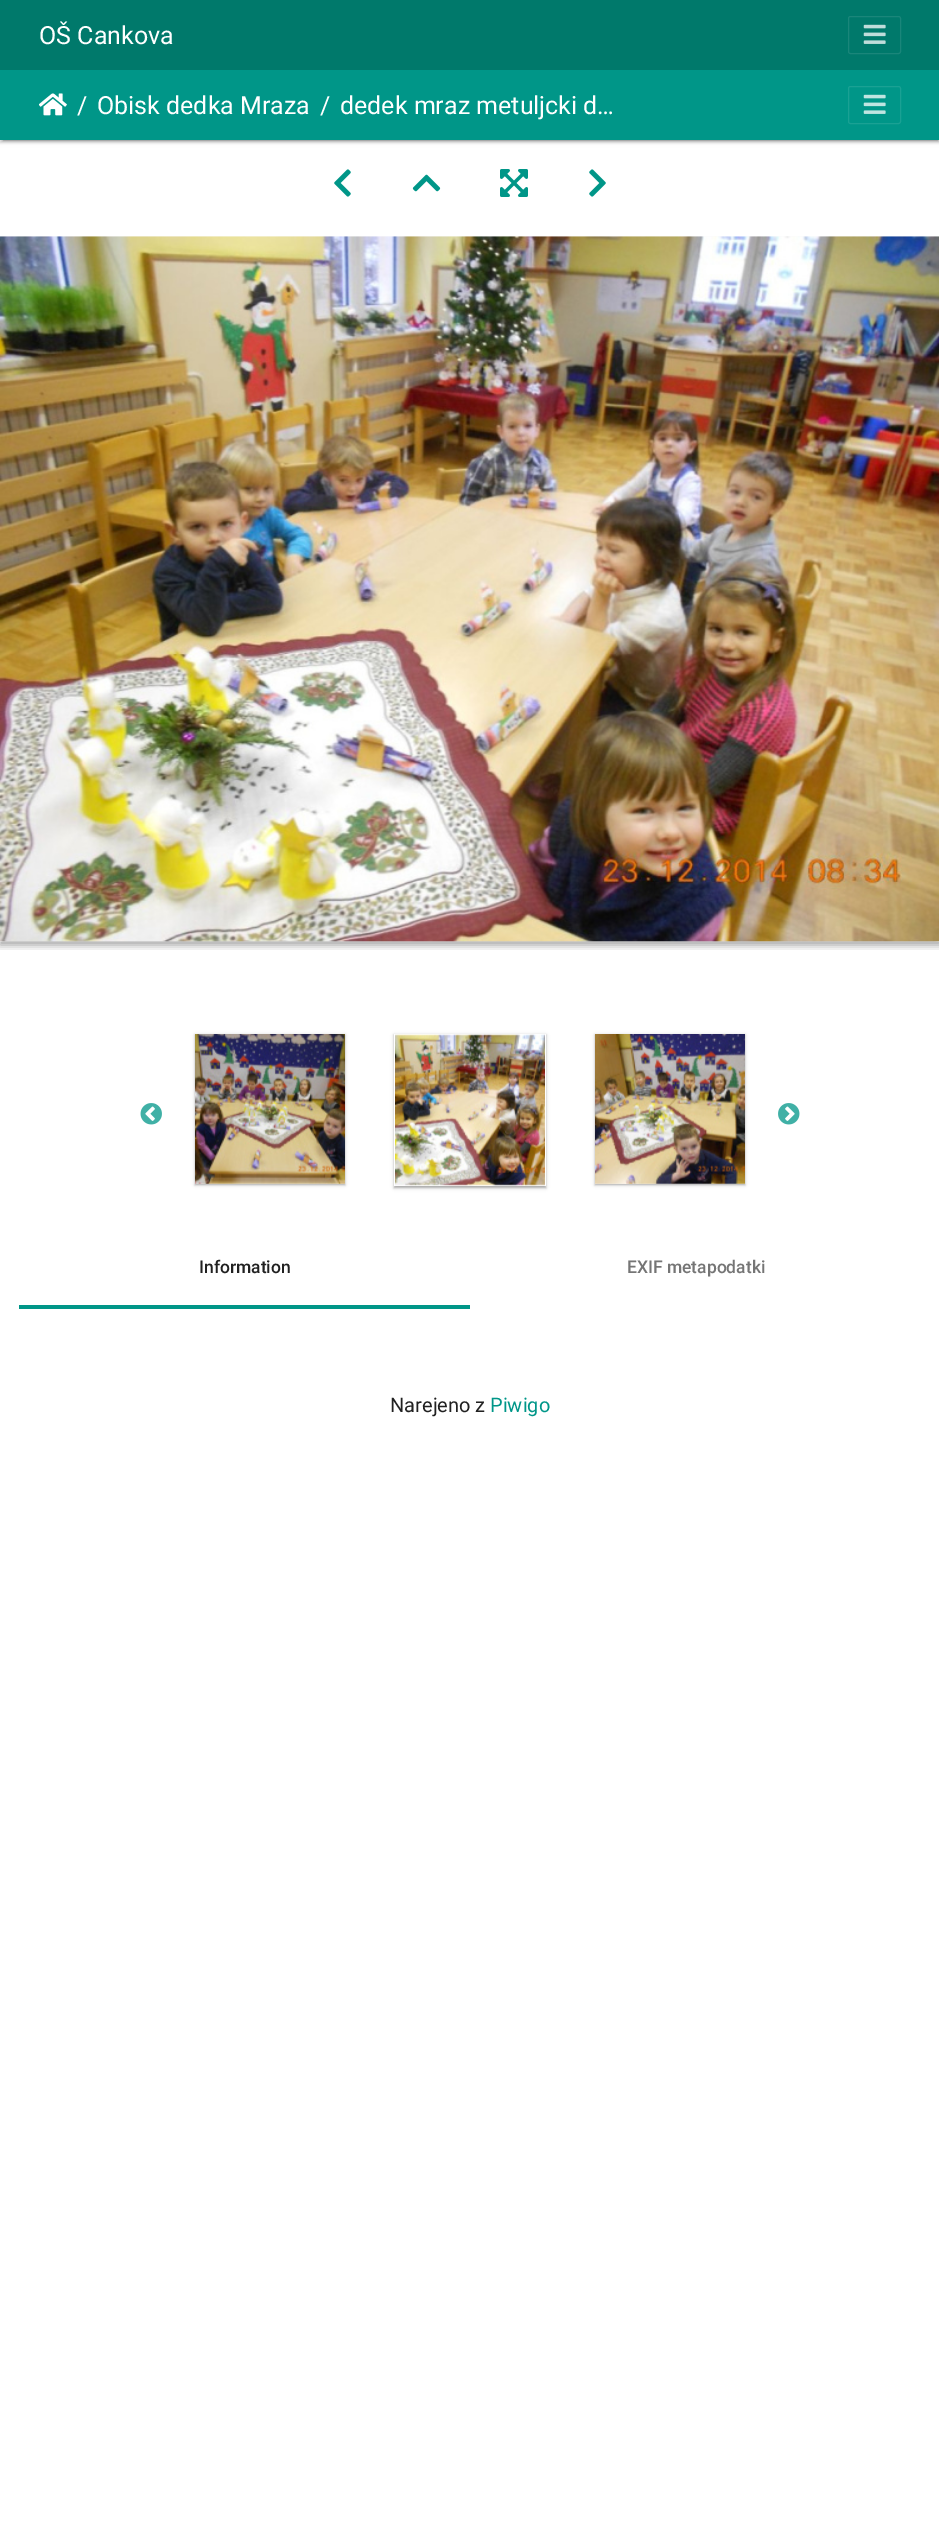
%!PS-Adobe-3.0
%%BoundingBox: 0 0 939 2546
%%LanguageLevel: 3
%%Pages: 1
%%EndComments
%%BeginProlog
/setalpha { dup .setfillconstantalpha .setstrokeconstantalpha } def
/rrect { 5 dict begin { /r /h /w /y /x } { exch def } forall
  x r add y moveto x w add y 2 copy h add r arct x w add y h add x 1 index r arct
  x y h add x y r arct x y 2 copy exch w add exch r arct closepath end } def
/softshadow { 12 dict begin { /a /b /q /h /w /y /x } { exch def } forall gsave /was 0 def
  9 -2 -9 { dup b mul 4 div /e exch def 1 sub .425 mul 2.718 exch exp 1 add a .99 .min exch div /now exch def
    1 1 now sub 1 was sub div sub setalpha /was now def
    w h .min e 2 mul add 0 gt { x e sub y e sub w e 2 mul add h e 2 mul add
      q e add b .6 mul add w h .min 2 div e add .min 0 .max rrect fill } if } for grestore end } def
/drawimage { 5 dict begin { /h /w /y /x /name } { exch def } forall
  gsave x y translate w h scale
  w h 8 [w 0 0 h 0 0] name (r) file false 3 colorimage grestore end } def
%%EndProlog
%%BeginSetup
<< /PageSize [939 2546] /PageUsesTransparency true >> setpagedevice
%%EndSetup
%%Page: 1 1
0 .pushpdf14devicefilter
0 2546 translate 1 -1 scale
4 setmiterlimit
1 setgray
0 0 939 2546 rectfill
0 setgray
0 71 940 70 0 3 0.12 softshadow
0 73 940 70 0 1 0.14 softshadow
0 0.475 0.42 setrgbcolor
0 0 939 70 rectfill
0.102 0.525 0.478 setrgbcolor
848.5 16.5 52 37 2 rrect stroke
(images/1.raw) 863 24 23 20 drawimage
0 setgray
3 76 935 65 0 0.5 0.2 softshadow
0 0.588 0.533 setrgbcolor
0 70 939 70 rectfill
(images/2.raw) 39 93 28 23 drawimage
0.102 0.631 0.58 setrgbcolor
848.5 86.5 52 37 2 rrect stroke
(images/3.raw) 863 94 23 20 drawimage
(images/4.raw) 334 169 17 28 drawimage
(images/5.raw) 412 174 29 18 drawimage
(images/6.raw) 500 169 28 28 drawimage
(images/7.raw) 589 169 17 28 drawimage
gsave
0 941 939 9 rectclip
0 setgray
0 240 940 705 0 4 0.23 softshadow
0 240 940 705 0 4 0.16 softshadow
grestore
(images/8.raw) 0 236 939 706 drawimage
(images/9.raw) 140 1103 22 22 drawimage
0 setgray
195 1035 150 150 0 2 0.12 softshadow
195 1035 150 150 0 1 0.24 softshadow
(images/10.raw) 195 1034 150 150 drawimage
gsave
newpath 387 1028 moveto 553 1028 lineto 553 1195 lineto 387 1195 lineto closepath 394 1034 moveto 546 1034 lineto 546 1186 lineto 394 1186 lineto closepath eoclip newpath
394 1035 152 153 0 2 0.12 softshadow
grestore
gsave
newpath 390 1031 moveto 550 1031 lineto 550 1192 lineto 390 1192 lineto closepath 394 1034 moveto 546 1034 lineto 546 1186 lineto 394 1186 lineto closepath eoclip newpath
394 1035 152 153 0 1 0.24 softshadow
grestore
(images/11.raw) 395 1034 150 152 drawimage
595 1035 150 150 0 2 0.12 softshadow
595 1035 150 150 0 1 0.24 softshadow
(images/12.raw) 595 1034 150 150 drawimage
(images/13.raw) 778 1103 22 22 drawimage
0 0.588 0.533 setrgbcolor
19 1305 451 4 rectfill
/Roboto-Regular [25 0 0 -25 0 0] selectfont
1 setgray
39 44 moveto (OŠ Cankova) show
77 114 moveto (/) show
97 114 moveto (Obisk dedka Mraza) show
320 114 moveto (/) show
340 114 moveto (dedek mraz metuljcki d…) show
/Roboto-Medium [17.5 0 0 -17.5 0 0] selectfont
0.129 setgray
199 1273 moveto (Information) show
0.459 setgray
627 1273 moveto (EXIF metapodatki) show
/Roboto-Regular [20 0 0 -20 0 0] selectfont
0.129 setgray
390 1412 moveto (Narejeno z) show
0 0.588 0.533 setrgbcolor
490 1412 moveto (Piwigo) show
.poppdf14devicefilter showpage
%%EOF
